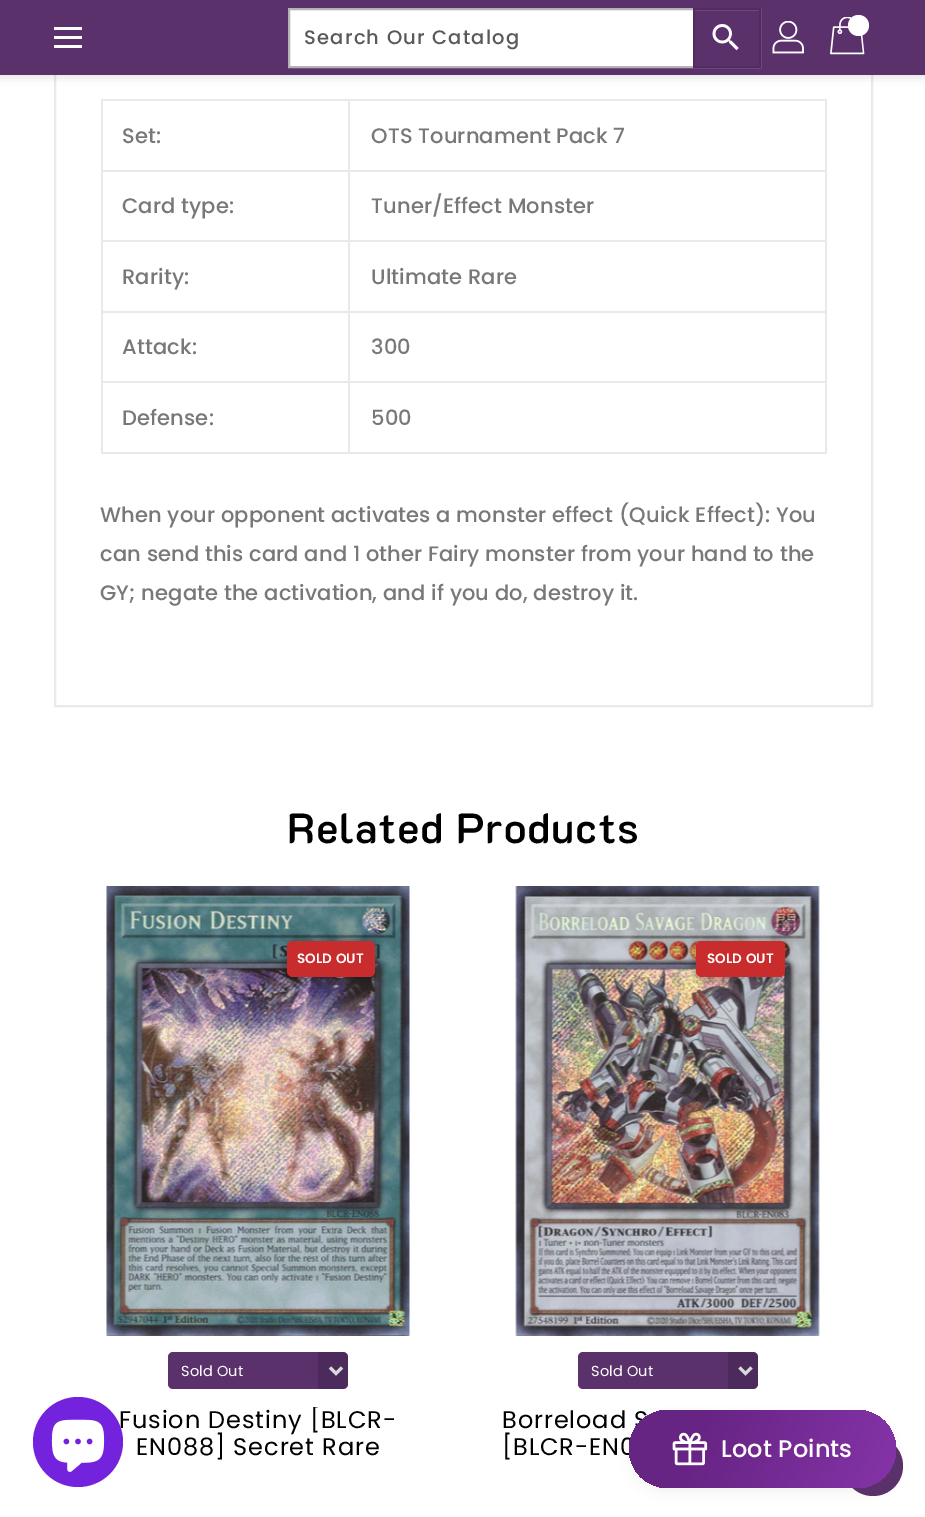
%!PS-Adobe-3.0
%%BoundingBox: 0 0 925 1517
%%LanguageLevel: 3
%%Pages: 1
%%EndComments
%%BeginProlog
/setalpha { dup .setfillconstantalpha .setstrokeconstantalpha } def
/rrect { 5 dict begin { /r /h /w /y /x } { exch def } forall
  x r add y moveto x w add y 2 copy h add r arct x w add y h add x 1 index r arct
  x y h add x y r arct x y 2 copy exch w add exch r arct closepath end } def
/softshadow { 12 dict begin { /a /b /q /h /w /y /x } { exch def } forall gsave /was 0 def
  9 -2 -9 { dup b mul 4 div /e exch def 1 sub .425 mul 2.718 exch exp 1 add a .99 .min exch div /now exch def
    1 1 now sub 1 was sub div sub setalpha /was now def
    w h .min e 2 mul add 0 gt { x e sub y e sub w e 2 mul add h e 2 mul add
      q e add b .6 mul add w h .min 2 div e add .min 0 .max rrect fill } if } for grestore end } def
/drawimage { 5 dict begin { /h /w /y /x /name } { exch def } forall
  gsave x y translate w h scale
  w h 8 [w 0 0 h 0 0] name (r) file false 3 colorimage grestore end } def
%%EndProlog
%%BeginSetup
<< /PageSize [925 1517] /PageUsesTransparency true >> setpagedevice
%%EndSetup
%%Page: 1 1
0 .pushpdf14devicefilter
0 1517 translate 1 -1 scale
4 setmiterlimit
1 setgray
0 0 925 1517 rectfill
0.914 setgray
2 setlinewidth
55 -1 817 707 rectstroke
0 setgray
-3 -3 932 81 0 4 0.1 softshadow
0.357 0.192 0.424 setrgbcolor
0 0 925 75 rectfill
1 setgray
54 27 28 3 rectfill
54 36 28 3 rectfill
54 45 28 3 rectfill
290 10 403 56 rectfill
0.702 setgray
289 9 471 58 rectstroke
0.322 0.173 0.38 setrgbcolor
694 9 66 58 rectstroke
(images/2.raw) 712 24 27 27 drawimage
(images/3.raw) 772 21 32 33 drawimage
(images/4.raw) 830 17 35 38 drawimage
1 setgray
newpath 858.5 25.5 10.5 0 360 arc closepath fill
0.91 0.914 0.922 setrgbcolor
348 99 479 2 rectfill
348 170 479 2 rectfill
348 240 479 2 rectfill
348 311 479 2 rectfill
348 381 479 2 rectfill
825 381 2 72 rectfill
348 452 479 2 rectfill
348 381 2 72 rectfill
101 381 249 2 rectfill
348 311 2 72 rectfill
101 311 249 2 rectfill
348 240 2 72 rectfill
101 240 249 2 rectfill
348 170 2 72 rectfill
101 170 249 2 rectfill
348 99 2 72 rectfill
101 99 249 2 rectfill
101 452 249 2 rectfill
101 381 2 72 rectfill
101 311 2 72 rectfill
101 240 2 72 rectfill
101 170 2 72 rectfill
101 99 2 72 rectfill
825 311 2 72 rectfill
825 240 2 72 rectfill
825 170 2 72 rectfill
825 99 2 72 rectfill
(images/5.raw) 106 886 304 450 drawimage
0 setgray
284 938 94 42 9 4 0.2 softshadow
0.788 0.173 0.173 setrgbcolor
287 941 88 36 6 rrect fill
0.357 0.192 0.424 setrgbcolor
168 1352 180 37 5 rrect fill
1 setgray
3 setlinewidth
newpath 330 1367.5 moveto 336 1373.5 lineto 342 1367.5 lineto stroke
0.15 setalpha
0 setgray
newpath 318 1352 moveto 343 1352 lineto 346 1352 348 1354 348 1357 curveto 348 1384 lineto 348 1387 346 1389 343 1389 curveto 318 1389 lineto closepath fill
1 setalpha
(images/6.raw) 515 886 305 450 drawimage
693 938 95 42 9 4 0.2 softshadow
0.788 0.173 0.173 setrgbcolor
696 941 89 36 6 rrect fill
0.357 0.192 0.424 setrgbcolor
578 1352 180 37 5 rrect fill
1 setgray
newpath 739.5 1367.5 moveto 745.5 1373.5 lineto 751.5 1367.5 lineto stroke
0.15 setalpha
0 setgray
newpath 728 1352 moveto 753 1352 lineto 756 1352 758 1354 758 1357 curveto 758 1384 lineto 758 1387 756 1389 753 1389 curveto 728 1389 lineto closepath fill
1 setalpha
0.357 0.192 0.424 setrgbcolor
newpath 873 1466 30 0 360 arc closepath fill
0.267 setgray
632 1419 261 72 36 6 0.08 softshadow
/Poppins-Medium [19.5 0 0 -19.5 0 0] selectfont
0.349 setgray
304 44 moveto 1.25 0 (Search Our Catalog) ashow
/Poppins-Medium [21 0 0 -21 0 0] selectfont
0.471 setgray
122 143 moveto 0.15 0 (Set:) ashow
371 143 moveto 0.15 0 (OTS Tournament Pack 7) ashow
122 213 moveto 0.15 0 (Card type:) ashow
371 213 moveto 0.15 0 (Tuner/Effect Monster) ashow
122 284 moveto 0.15 0 (Rarity:) ashow
371 284 moveto 0.15 0 (Ultimate Rare) ashow
122 354 moveto 0.15 0 (Attack:) ashow
371 354 moveto 0.15 0 (300) ashow
122 425 moveto 0.15 0 (Defense:) ashow
371 425 moveto 0.15 0 (500) ashow
100 522 moveto 0.15 0 (When your opponent activates a monster effect \(Quick Effect\): You) ashow
100 561 moveto 0.15 0 (can send this card and 1 other Fairy monster from your hand to the) ashow
100 600 moveto 0.15 0 (GY; negate the activation, and if you do, destroy it.) ashow
/K2D-SemiBold [42 0 0 -42 0 0] selectfont
0 setgray
287 843 moveto 0.75 0 (Related Products) ashow
/Poppins-SemiBold [13.5 0 0 -13.5 0 0] selectfont
1 setgray
297 963 moveto 0.15 0 (SOLD OUT) ashow
/Poppins-Regular [14.5 0 0 -14.5 0 0] selectfont
181 1376 moveto 0.15 0 (Sold Out) ashow
gsave
84 1407 350 81 rectclip
/Poppins-Regular [24 0 0 -24 0 0] selectfont
0 setgray
119 1428 moveto 0.9 0 (Fusion Destiny [BLCR-) ashow
grestore
0.451 0.133 0.871 setrgbcolor
newpath 78 1442 45 0 360 arc closepath fill
(images/1.raw) 51 1419 54 53 drawimage
/Poppins-Regular [24 0 0 -24 0 0] selectfont
0 setgray
136 1455 moveto 0.9 0 (EN088] Secret Rare) ashow
/Poppins-SemiBold [13.5 0 0 -13.5 0 0] selectfont
1 setgray
707 963 moveto 0.15 0 (SOLD OUT) ashow
/Poppins-Regular [14.5 0 0 -14.5 0 0] selectfont
591 1376 moveto 0.15 0 (Sold Out) ashow
/Poppins-Regular [24 0 0 -24 0 0] selectfont
0 setgray
502 1428 moveto 0.9 0 (Borreload S) ashow
502 1455 moveto 0.9 0 ([BLCR-EN0) ashow
gsave 629 1410 267 78 39 rrect clip newpath
<< /ShadingType 2 /ColorSpace /DeviceRGB /Coords [631 1403 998 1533] /Extend [true true] /Function << /FunctionType 3 /Domain [0 1] /Functions [<< /FunctionType 2 /Domain [0 1] /C0 [0.4 0.141 0.514] /C1 [0.4 0.141 0.514] /N 1 >> << /FunctionType 2 /Domain [0 1] /C0 [0.4 0.141 0.514] /C1 [0.584 0.235 0.737] /N 1 >>] /Bounds [0.17] /Encode [0 1 0 1] >> >> shfill grestore
(images/7.raw) 672 1432 36 34 drawimage
/Poppins-Medium [24 0 0 -24 0 0] selectfont
1 setgray
721 1457 moveto 0.15 0 (Loot Points) ashow
.poppdf14devicefilter showpage
%%EOF
